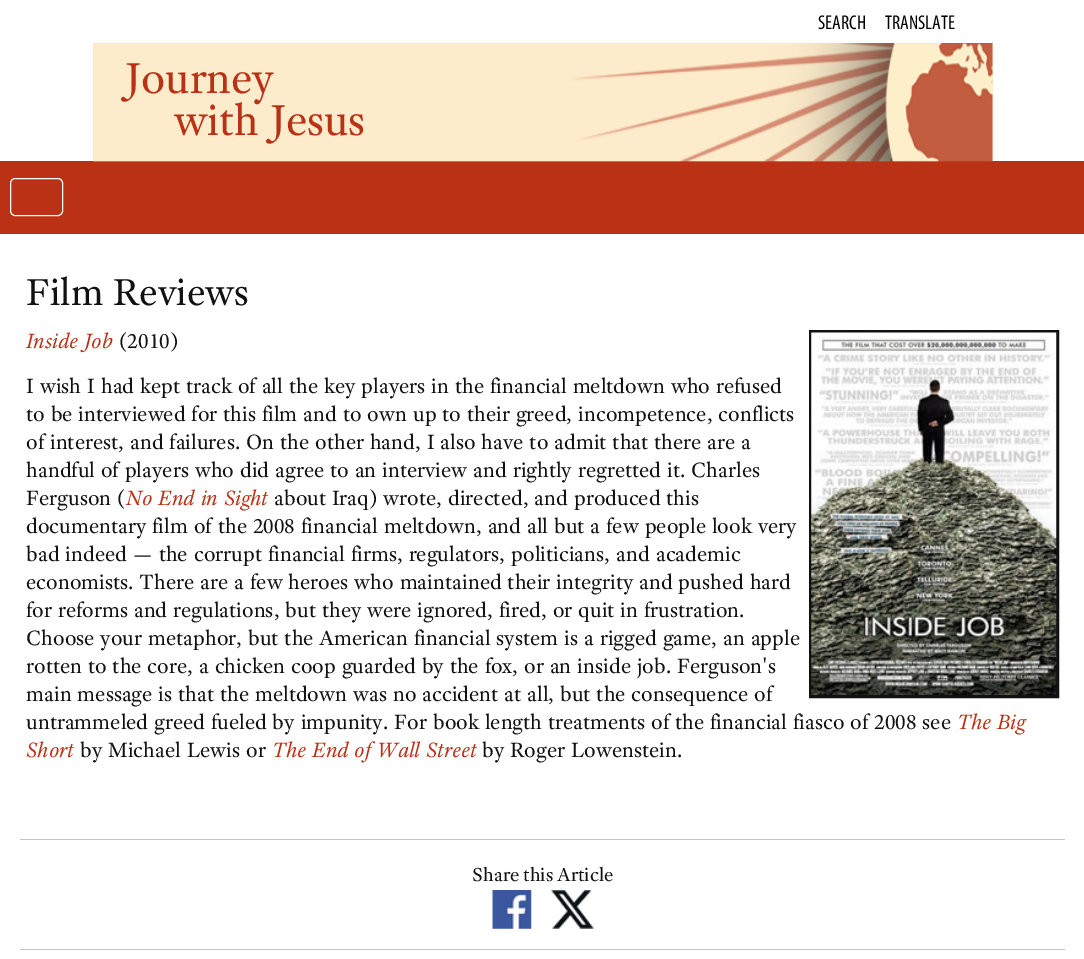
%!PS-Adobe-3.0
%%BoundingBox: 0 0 1084 959
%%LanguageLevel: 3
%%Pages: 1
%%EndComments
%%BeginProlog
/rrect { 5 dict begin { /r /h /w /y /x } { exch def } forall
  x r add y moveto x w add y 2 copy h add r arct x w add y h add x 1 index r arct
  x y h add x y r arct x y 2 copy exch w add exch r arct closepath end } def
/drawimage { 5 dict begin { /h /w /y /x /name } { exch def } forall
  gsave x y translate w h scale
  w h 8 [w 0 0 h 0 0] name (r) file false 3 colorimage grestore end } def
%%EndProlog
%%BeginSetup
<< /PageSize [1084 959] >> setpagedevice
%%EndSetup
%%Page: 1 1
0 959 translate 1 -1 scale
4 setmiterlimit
1 setgray
0 0 1084 959 rectfill
0.992 0.925 0.8 setrgbcolor
992 43 1 118 rectfill
0.733 0.192 0.086 setrgbcolor
0 161 1084 73 rectfill
(images/1.raw) 93 43 900 119 drawimage
0.067 setgray
3 setlinewidth
810.5 331.5 247 365 rectstroke
(images/2.raw) 811 332 246 363 drawimage
0.769 setgray
20 839 1045 1 rectfill
(images/3.raw) 492 890 40 39 drawimage
(images/4.raw) 551 890 43 39 drawimage
20 949 1045 1 rectfill
1 setgray
1 setlinewidth
10.5 178.5 52 37 4.5 rrect stroke
/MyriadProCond-Regular [20 0 0 -20 0 0] selectfont
0 setgray
818 29 moveto (SEARCH) show
885 29 moveto (TRANSLATE) show
/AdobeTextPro-Regular [46 0 0 -46 0 0] selectfont
0.733 0.192 0.086 setrgbcolor
124 93 moveto (Journey) show
174 135 moveto (with Jesus) show
/AdobeTextPro-Regular [40 0 0 -40 0 0] selectfont
0.067 setgray
26 305 moveto 1.25 0 32 (Film Reviews) widthshow
/AdobeTextPro-Italic [22 0 0 -22 0 0] selectfont
0.733 0.192 0.086 setrgbcolor
26 348 moveto 1.25 0 32 (Inside Job) widthshow
/AdobeTextPro-Regular [22 0 0 -22 0 0] selectfont
0.067 setgray
119 348 moveto (\(2010\)) show
26 393 moveto 1.25 0 32 (I wish I had kept track of all the key players in the financial meltdown who refused) widthshow
26 421 moveto 1.25 0 32 (to be interviewed for this film and to own up to their greed, incompetence, conflicts) widthshow
26 449 moveto 1.25 0 32 (of interest, and failures. On the other hand, I also have to admit that there are a) widthshow
26 477 moveto 1.25 0 32 (handful of players who did agree to an interview and rightly regretted it. Charles) widthshow
26 505 moveto 1.25 0 32 (Ferguson \() widthshow
/AdobeTextPro-Italic [22 0 0 -22 0 0] selectfont
0.733 0.192 0.086 setrgbcolor
126 505 moveto 1.25 0 32 (No End in Sight) widthshow
/AdobeTextPro-Regular [22 0 0 -22 0 0] selectfont
0.067 setgray
274 505 moveto 1.25 0 32 (about Iraq\) wrote, directed, and produced this) widthshow
26 533 moveto 1.25 0 32 (documentary film of the 2008 financial meltdown, and all but a few people look very) widthshow
26 561 moveto 1.4 0 32 (bad indeed — the corrupt financial firms, regulators, politicians, and academic) widthshow
26 589 moveto 1.25 0 32 (economists. There are a few heroes who maintained their integrity and pushed hard) widthshow
26 617 moveto 1.25 0 32 (for reforms and regulations, but they were ignored, fired, or quit in frustration.) widthshow
26 645 moveto 1.25 0 32 (Choose your metaphor, but the American financial system is a rigged game, an apple) widthshow
26 673 moveto 1.25 0 32 (rotten to the core, a chicken coop guarded by the fox, or an inside job. Ferguson's) widthshow
26 701 moveto 1.25 0 32 (main message is that the meltdown was no accident at all, but the consequence of) widthshow
26 729 moveto 1.25 0 32 (untrammeled greed fueled by impunity. For book length treatments of the financial fiasco of 2008 see) widthshow
/AdobeTextPro-Italic [22 0 0 -22 0 0] selectfont
0.733 0.192 0.086 setrgbcolor
957 729 moveto 1.25 0 32 (The Big) widthshow
26 757 moveto (Short) show
/AdobeTextPro-Regular [22 0 0 -22 0 0] selectfont
0.067 setgray
80 757 moveto 1.25 0 32 (by Michael Lewis or) widthshow
/AdobeTextPro-Italic [22 0 0 -22 0 0] selectfont
0.733 0.192 0.086 setrgbcolor
272 757 moveto 1.25 0 32 (The End of Wall Street) widthshow
/AdobeTextPro-Regular [22 0 0 -22 0 0] selectfont
0.067 setgray
482 757 moveto 1.25 0 32 (by Roger Lowenstein.) widthshow
/AdobeTextPro-Regular [20 0 0 -20 0 0] selectfont
472 881 moveto (Share this Article) show
showpage
%%EOF
